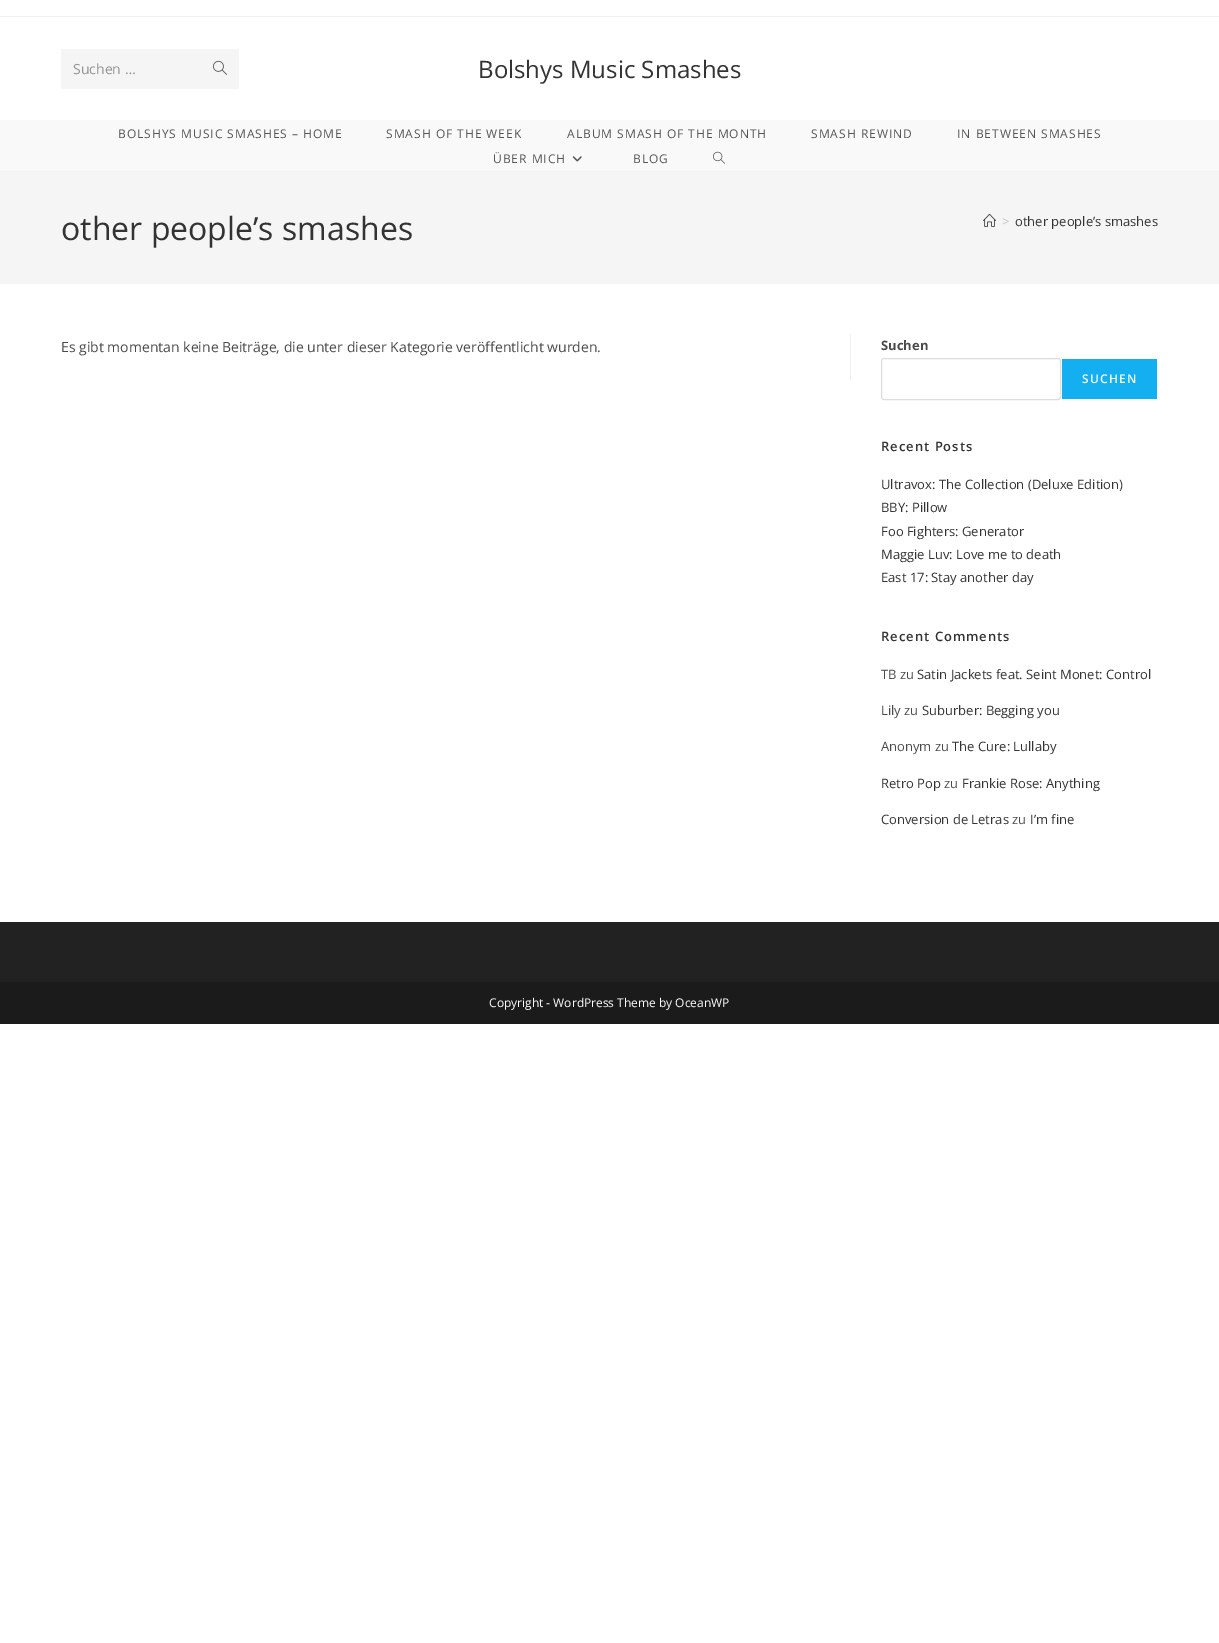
%!PS-Adobe-3.0
%%BoundingBox: 0 0 1219 1643
%%LanguageLevel: 3
%%Pages: 1
%%EndComments
%%BeginProlog
/rrect { 5 dict begin { /r /h /w /y /x } { exch def } forall
  x r add y moveto x w add y 2 copy h add r arct x w add y h add x 1 index r arct
  x y h add x y r arct x y 2 copy exch w add exch r arct closepath end } def
/drawimage { 5 dict begin { /h /w /y /x /name } { exch def } forall
  gsave x y translate w h scale
  w h 8 [w 0 0 h 0 0] name (r) file false 3 colorimage grestore end } def
%%EndProlog
%%BeginSetup
<< /PageSize [1219 1643] >> setpagedevice
%%EndSetup
%%Page: 1 1
0 1643 translate 1 -1 scale
4 setmiterlimit
1 setgray
0 0 1219 1643 rectfill
0.945 setgray
0 16 1219 1 rectfill
0 171 1219 1 rectfill
0.961 setgray
61 49 178 40 rectfill
(images/1.raw) 213 60 14 15 drawimage
0.976 setgray
0 120 1219 51 rectfill
(images/2.raw) 572 156 10 6 drawimage
(images/3.raw) 713 151 12 13 drawimage
0.961 setgray
0 172 1219 112 rectfill
(images/4.raw) 983 213 13 14 drawimage
0.945 setgray
850 334 1 46 rectfill
0.867 setgray
881.5 358.5 179 41 2.5 rrect stroke
0.075 0.686 0.941 setrgbcolor
1062 359 95 40 rectfill
0.133 setgray
0 922 1219 60 rectfill
0.106 setgray
0 982 1219 42 rectfill
/OpenSans-Regular [14 0 0 -14 0 0] selectfont
0.58 setgray
73 74 moveto (Suchen …) show
/OpenSans-Regular [24 0 0 -24 0 0] selectfont
0.2 setgray
478 78 moveto (Bolshys Music Smashes) show
/OpenSans-Regular [12 0 0 -12 0 0] selectfont
0.333 setgray
118 138 moveto 1 0 (BOLSHYS MUSIC SMASHES – HOME) ashow
386 138 moveto 1 0 (SMASH OF THE WEEK) ashow
567 138 moveto 1 0 (ALBUM SMASH OF THE MONTH) ashow
811 138 moveto 1 0 (SMASH REWIND) ashow
957 138 moveto 1 0 (IN BETWEEN SMASHES) ashow
493 163 moveto 1 0 (ÜBER MICH) ashow
633 163 moveto 1 0 (BLOG) ashow
/OpenSans-Regular [32 0 0 -32 0 0] selectfont
0.2 setgray
61 240 moveto (other people’s smashes) show
/OpenSans-Regular [13 0 0 -13 0 0] selectfont
0.776 setgray
1002 226 moveto (>) show
0.2 setgray
1015 226 moveto (other people’s smashes) show
/OpenSans-Regular [14 0 0 -14 0 0] selectfont
0.29 setgray
61 352 moveto (Es gibt momentan keine Beiträge, die unter dieser Kategorie veröffentlicht wurden.) show
/OpenSans-Bold [13 0 0 -13 0 0] selectfont
881 350 moveto (Suchen) show
/OpenSans-SemiBold [12 0 0 -12 0 0] selectfont
1 setgray
1082 383 moveto 1.25 0 (SUCHEN) ashow
/OpenSans-SemiBold [13 0 0 -13 0 0] selectfont
0.2 setgray
881 451 moveto 1 0 (Recent Posts) ashow
/OpenSans-Regular [13 0 0 -13 0 0] selectfont
881 489 moveto (Ultravox: The Collection \(Deluxe Edition\)) show
881 512 moveto (BBY: Pillow) show
881 536 moveto (Foo Fighters: Generator) show
881 559 moveto (Maggie Luv: Love me to death) show
881 582 moveto (East 17: Stay another day) show
/OpenSans-SemiBold [13 0 0 -13 0 0] selectfont
881 641 moveto 1 0 (Recent Comments) ashow
/OpenSans-Regular [13 0 0 -13 0 0] selectfont
0.29 setgray
881 679 moveto (TB zu) show
0.2 setgray
917 679 moveto (Satin Jackets feat. Seint Monet: Control) show
0.29 setgray
881 715 moveto (Lily zu) show
0.2 setgray
922 715 moveto (Suburber: Begging you) show
0.29 setgray
881 751 moveto (Anonym zu) show
0.2 setgray
952 751 moveto (The Cure: Lullaby) show
881 788 moveto (Retro Pop) show
0.29 setgray
944 788 moveto (zu) show
0.2 setgray
962 788 moveto (Frankie Rose: Anything) show
881 824 moveto (Conversion de Letras) show
0.29 setgray
1012 824 moveto (zu) show
0.2 setgray
1030 824 moveto (I’m fine) show
/OpenSans-Regular [12 0 0 -12 0 0] selectfont
1 setgray
489 1007 moveto (Copyright - WordPress Theme by OceanWP) show
showpage
%%EOF
